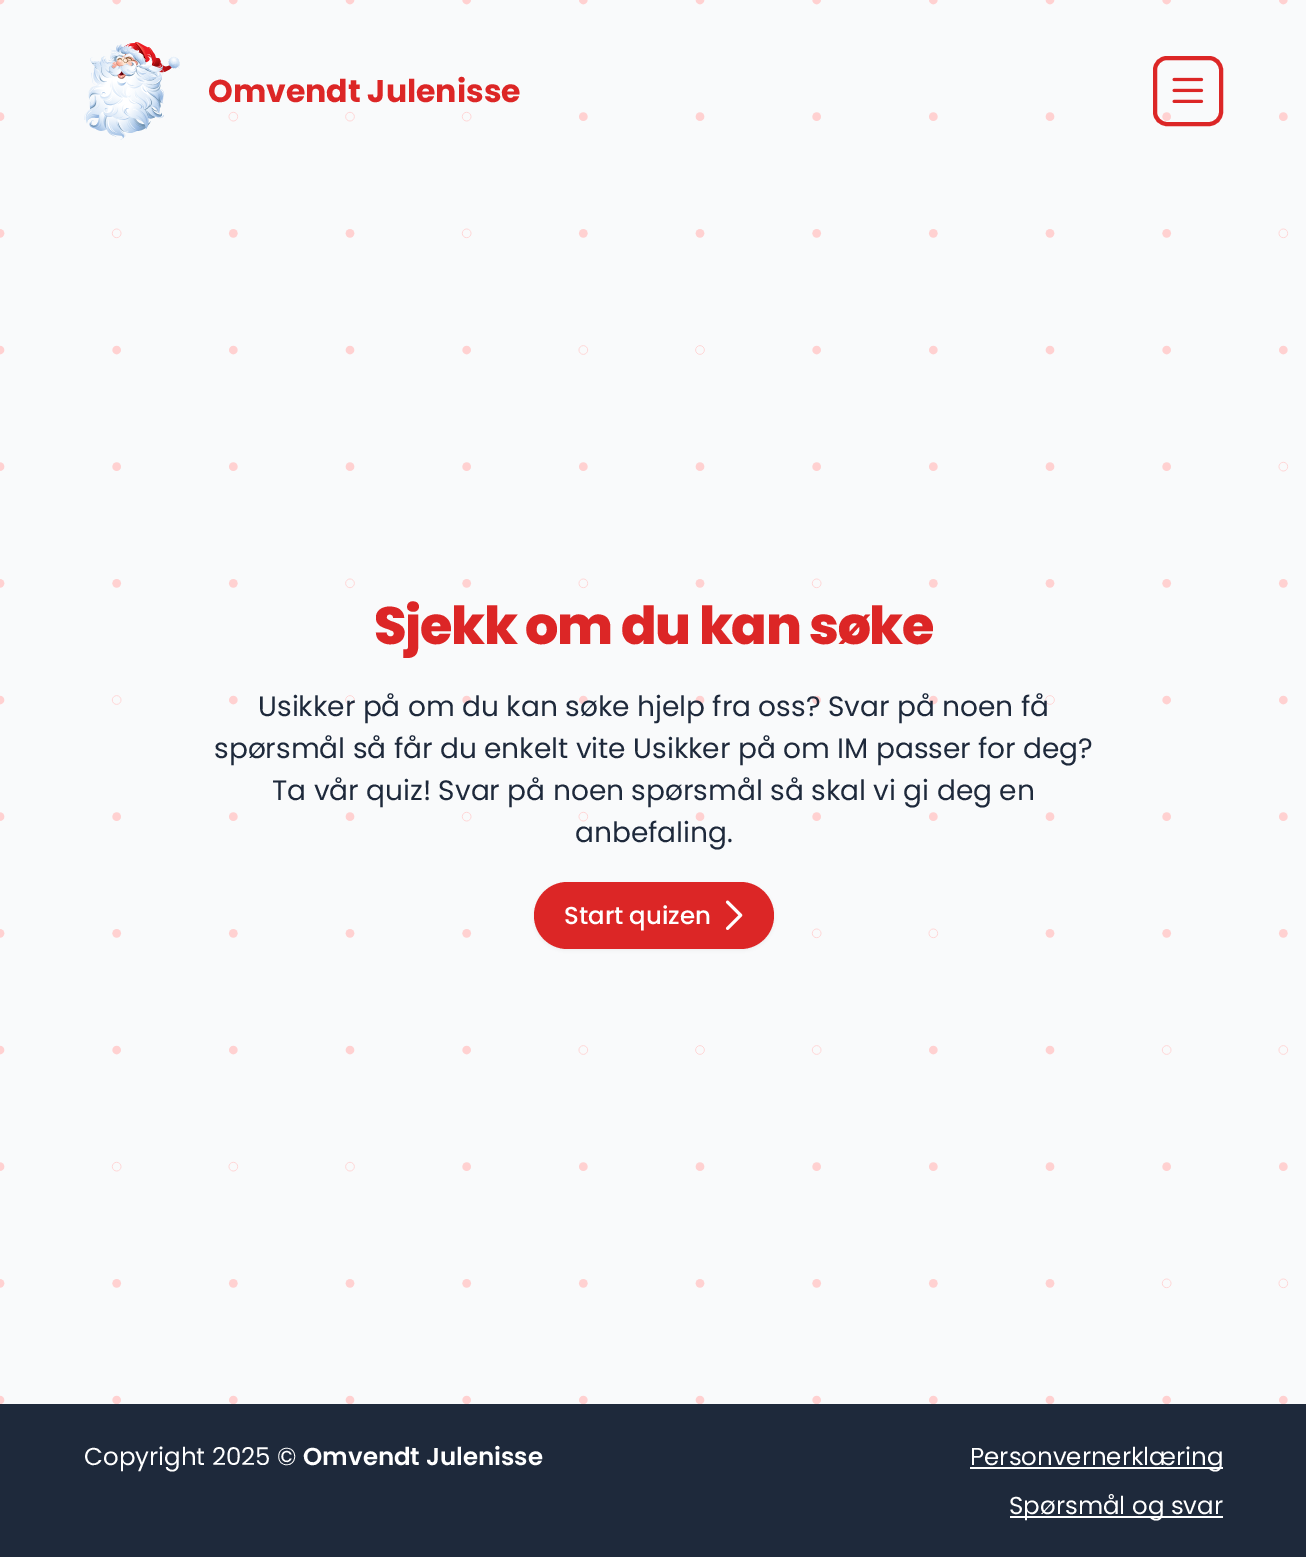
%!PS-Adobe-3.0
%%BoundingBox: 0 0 1306 1557
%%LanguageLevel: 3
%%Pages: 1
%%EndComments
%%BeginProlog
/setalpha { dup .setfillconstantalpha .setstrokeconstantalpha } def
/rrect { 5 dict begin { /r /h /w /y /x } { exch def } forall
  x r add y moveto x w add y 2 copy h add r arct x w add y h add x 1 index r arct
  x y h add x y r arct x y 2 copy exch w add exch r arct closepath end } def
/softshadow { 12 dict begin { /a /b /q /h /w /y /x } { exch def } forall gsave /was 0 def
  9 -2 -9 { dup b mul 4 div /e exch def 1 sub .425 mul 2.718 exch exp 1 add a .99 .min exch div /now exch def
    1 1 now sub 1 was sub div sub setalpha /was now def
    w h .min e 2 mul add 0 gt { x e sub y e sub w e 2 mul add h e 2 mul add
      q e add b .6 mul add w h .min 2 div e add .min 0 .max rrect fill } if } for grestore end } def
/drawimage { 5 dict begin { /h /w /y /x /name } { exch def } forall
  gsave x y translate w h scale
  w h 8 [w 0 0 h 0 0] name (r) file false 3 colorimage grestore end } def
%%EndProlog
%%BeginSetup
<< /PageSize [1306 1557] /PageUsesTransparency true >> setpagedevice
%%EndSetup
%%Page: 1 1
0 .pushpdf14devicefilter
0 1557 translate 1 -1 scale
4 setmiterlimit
0.976 0.98 0.984 setrgbcolor
0 0 1306 1557 rectfill
(images/1.raw) 0 0 1289 1404 drawimage
(images/2.raw) 84 42 96 98 drawimage
0.863 0.149 0.149 setrgbcolor
4 setlinewidth
1155 58 66 66 12 rrect stroke
(images/3.raw) 1172 77 32 26 drawimage
0 setgray
534 884 240 66 33 2 0.05 softshadow
0.863 0.149 0.149 setrgbcolor
534 882 240 67 33.5 rrect fill
(images/4.raw) 725 900 18 30 drawimage
0.118 0.161 0.231 setrgbcolor
0 1404 1306 153 rectfill
1 setgray
970 1467 253 2 rectfill
1010 1516 213 2 rectfill
/Poppins-Bold [31.5 0 0 -31.5 0 0] selectfont
0.863 0.149 0.149 setrgbcolor
208 102 moveto (Omvendt Julenisse) show
/Poppins-ExtraBold [52.5 0 0 -52.5 0 0] selectfont
374 644 moveto -1.3 0 (Sjekk om du kan søke) ashow
/Poppins-Regular [28 0 0 -28 0 0] selectfont
0.118 0.161 0.231 setrgbcolor
258 716 moveto (Usikker på om du kan søke hjelp fra oss? Svar på noen få) show
214 758 moveto (spørsmål så får du enkelt vite Usikker på om IM passer for deg?) show
272 800 moveto (Ta vår quiz! Svar på noen spørsmål så skal vi gi deg en) show
575 842 moveto (anbefaling.) show
/Poppins-Medium [24.5 0 0 -24.5 0 0] selectfont
1 setgray
564 924 moveto (Start quizen) show
/Poppins-Regular [24.5 0 0 -24.5 0 0] selectfont
84 1465 moveto (Copyright 2025 ©) show
/Poppins-SemiBold [24.5 0 0 -24.5 0 0] selectfont
303 1465 moveto (Omvendt Julenisse) show
/Poppins-Regular [24.5 0 0 -24.5 0 0] selectfont
970 1465 moveto (Personvernerklæring) show
1009 1514 moveto (Spørsmål og svar) show
.poppdf14devicefilter showpage
%%EOF
